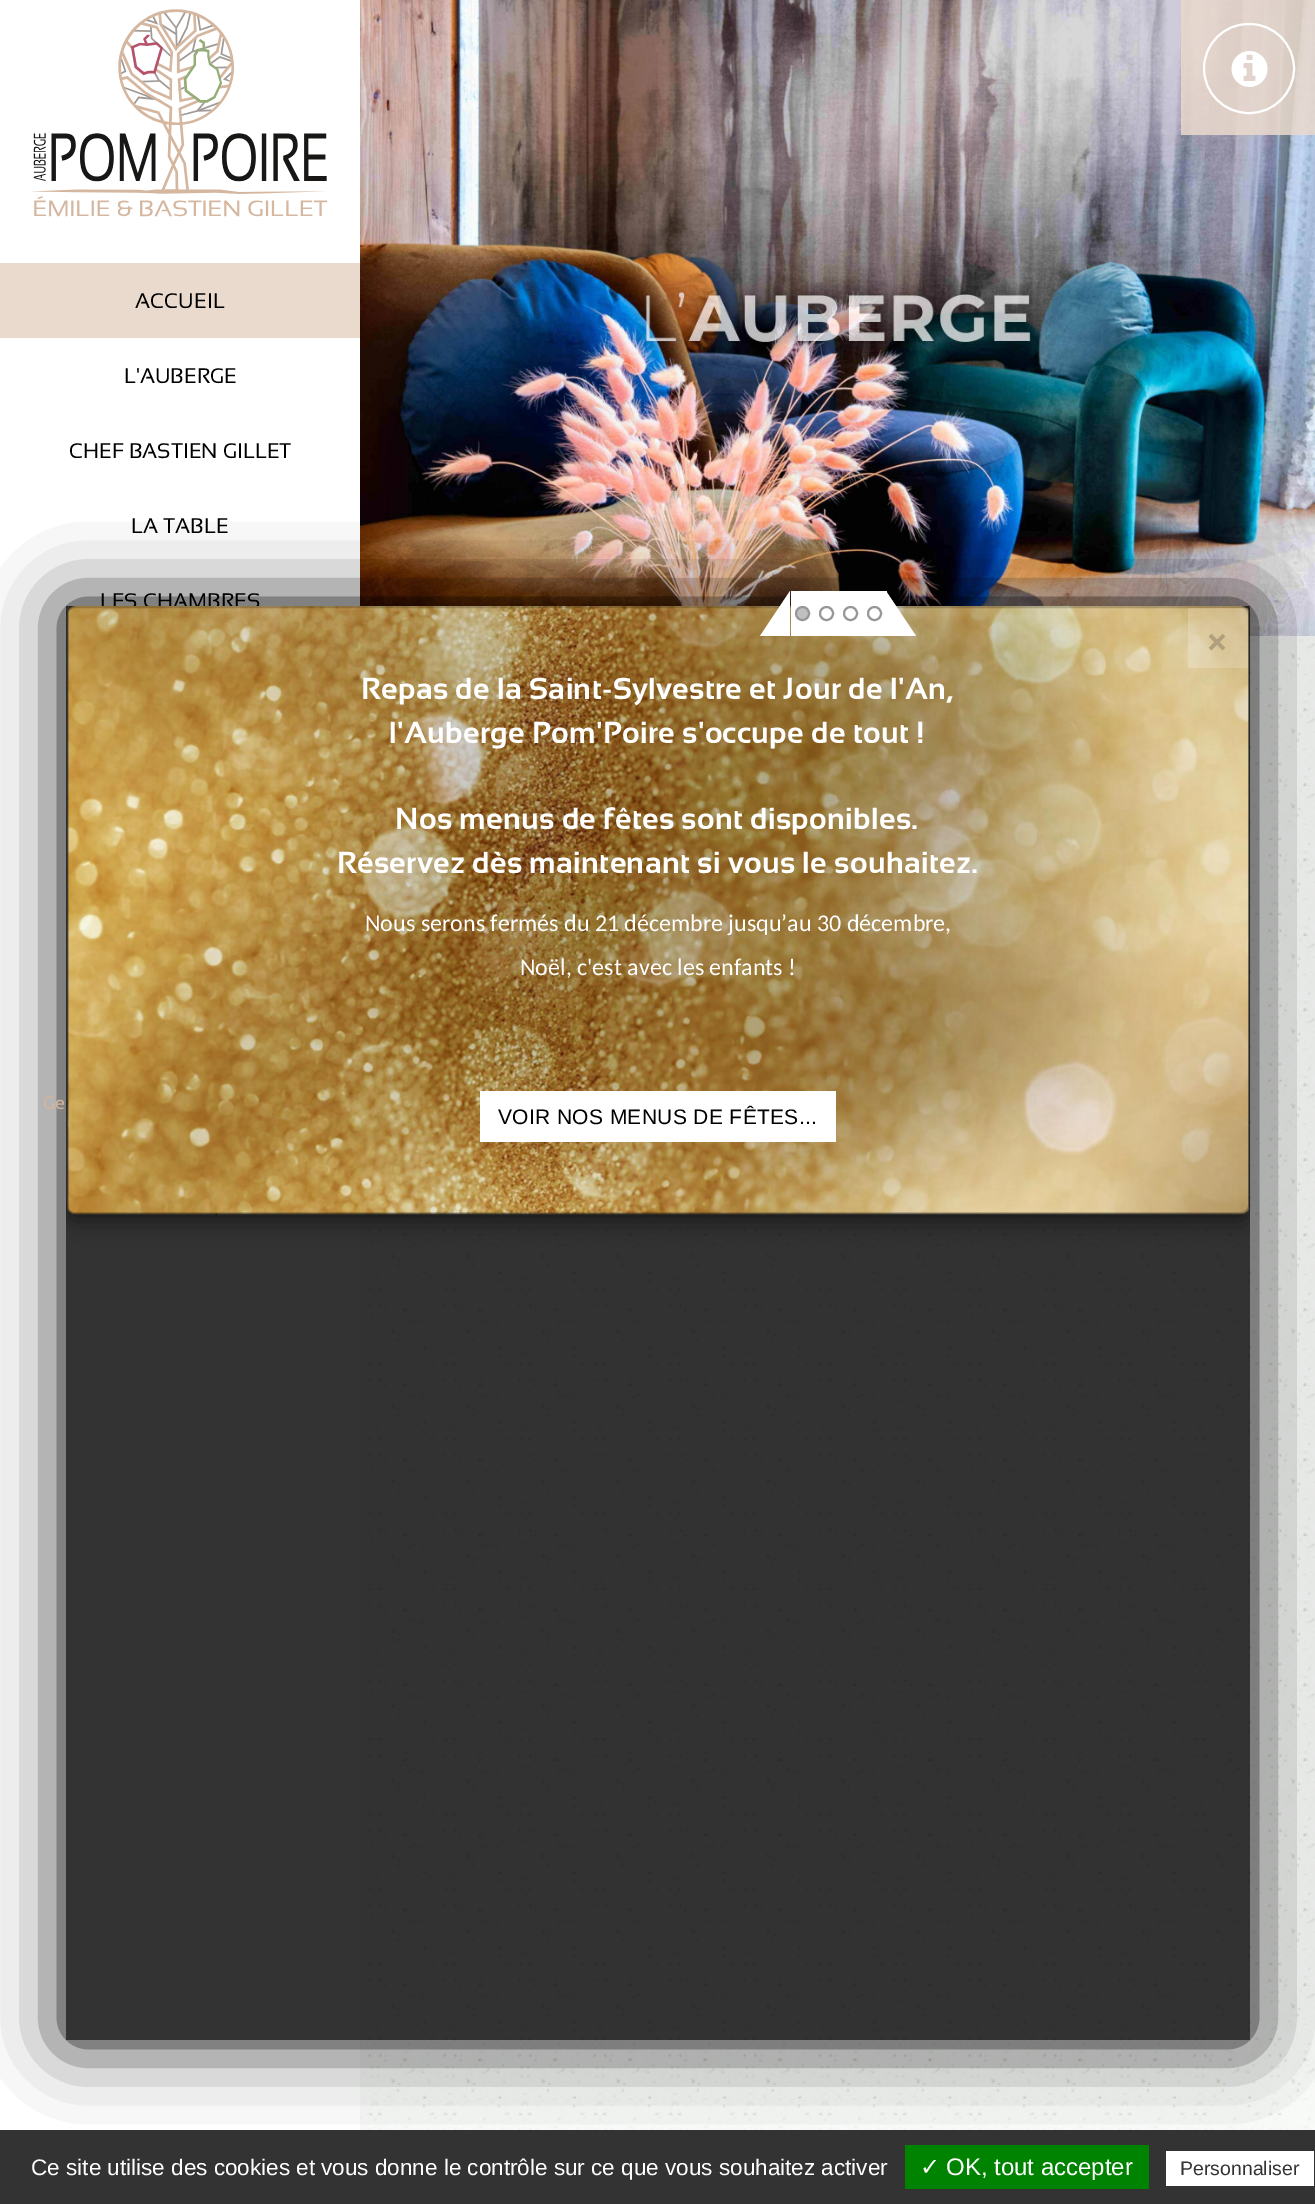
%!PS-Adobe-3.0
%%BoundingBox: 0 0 1315 2204
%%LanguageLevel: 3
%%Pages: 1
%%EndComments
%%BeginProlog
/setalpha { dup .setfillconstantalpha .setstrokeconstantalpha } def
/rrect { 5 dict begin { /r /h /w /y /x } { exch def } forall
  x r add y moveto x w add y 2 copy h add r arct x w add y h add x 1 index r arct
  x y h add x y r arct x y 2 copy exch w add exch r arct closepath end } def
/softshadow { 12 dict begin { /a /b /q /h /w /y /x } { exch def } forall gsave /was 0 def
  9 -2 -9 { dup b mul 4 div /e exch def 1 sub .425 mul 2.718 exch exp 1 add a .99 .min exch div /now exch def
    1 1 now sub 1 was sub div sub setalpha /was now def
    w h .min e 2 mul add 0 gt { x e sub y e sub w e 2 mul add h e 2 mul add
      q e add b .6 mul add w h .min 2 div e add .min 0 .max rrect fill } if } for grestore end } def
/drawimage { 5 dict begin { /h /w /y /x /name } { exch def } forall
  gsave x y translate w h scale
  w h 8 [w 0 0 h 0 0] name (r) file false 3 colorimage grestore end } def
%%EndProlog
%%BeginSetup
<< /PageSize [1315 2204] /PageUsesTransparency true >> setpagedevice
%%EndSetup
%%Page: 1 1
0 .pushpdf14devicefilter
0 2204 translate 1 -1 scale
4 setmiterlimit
1 setgray
0 0 1315 2204 rectfill
(images/1.raw) 360 636 955 1494 drawimage
(images/3.raw) 360 0 955 636 drawimage
0.85 setalpha
0.918 0.855 0.804 setrgbcolor
1181 0 134 135 rectfill
1 setalpha
1 setgray
2 setlinewidth
1204 24 90 89 44.5 rrect stroke
(images/2.raw) 1231 51 37 36 drawimage
(images/4.raw) 31 9 297 208 drawimage
0.918 0.855 0.804 setrgbcolor
0 263 360 75 rectfill
gsave
newpath 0 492 moveto 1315 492 lineto 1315 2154 lineto 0 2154 lineto closepath 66 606 moveto 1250 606 lineto 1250 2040 lineto 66 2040 lineto closepath eoclip newpath
0 setgray
66 606 1184 1434 0 37.5 1 softshadow
grestore
0.2 setgray
0 2130 1315 74 rectfill
0 0.514 0 setrgbcolor
905 2145 244 44 rectfill
1 setgray
1166 2151 148 35 rectfill
/Sansation-Regular [21 0 0 -21 0 0] selectfont
0 setgray
135 308 moveto (ACCUEIL) show
124 383 moveto (L'AUBERGE) show
69 458 moveto (CHEF BASTIEN GILLET) show
131 533 moveto (LA TABLE) show
100 608 moveto (LES CHAMBRES) show
/Sansation-Regular [18 0 0 -18 0 0] selectfont
0.831 0.71 0.612 setrgbcolor
43 1109 moveto (Ge) show
0.8 setalpha
0 setgray
66 606 1184 1434 rectfill
gsave
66 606 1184 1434 rectclip
newpath 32 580 moveto 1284 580 lineto 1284 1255 lineto 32 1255 lineto closepath 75 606 moveto 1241 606 lineto 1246 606 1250 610 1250 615 curveto 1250 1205 lineto 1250 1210 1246 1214 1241 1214 curveto 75 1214 lineto 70 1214 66 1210 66 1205 curveto 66 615 lineto 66 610 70 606 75 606 curveto closepath eoclip newpath
1 setalpha
66 614 1184 607 9 11 0.5 softshadow
grestore
1 setalpha
(images/5.raw) 67 606 1182 609 drawimage
0.2 setalpha
67 607 1182 606 8 rrect stroke
1 setalpha
1 setgray
791 591 96 45 rectfill
newpath 916 636 moveto 886 636 lineto 886 591 lineto closepath fill
newpath 790 636 moveto 760 636 lineto 790 591 lineto closepath fill
0.588 setgray
newpath 874.5 613.5 6.5 0 360 arc closepath stroke
newpath 850.5 613.5 6.5 0 360 arc closepath stroke
newpath 826.5 613.5 6.5 0 360 arc closepath stroke
0.753 setgray
newpath 802.5 613.5 6.5 0 360 arc closepath gsave fill grestore
0.588 setgray
stroke
0.2 setalpha
1 setgray
1188 608 60 60 rectfill
/Sansation-Regular [54 0 0 -54 0 0] selectfont
1 setalpha
0.686 0.624 0.486 setrgbcolor
1206 656 moveto 0.35 0 (×) ashow
/Sansation-Bold [30.3 0 0 -30.3 0 0] selectfont
1 setgray
361 699 moveto 0.35 0 (Repas de la Saint-Sylvestre et Jour de l'An,) ashow
389 743 moveto 0.35 0 (l'Auberge Pom'Poire s'occupe de tout !) ashow
395 829 moveto 0.35 0 (Nos menus de fêtes sont disponibles.) ashow
337 873 moveto 0.35 0 (Réservez dès maintenant si vous le souhaitez.) ashow
/Carlito-Regular [24 0 0 -24 0 0] selectfont
365 931 moveto (Nous serons fermés du 21 décembre jusqu’au 30 décembre,) show
520 975 moveto (Noël, c'est avec les enfants !) show
480 1091 356 51 rectfill
/LiberationSans-Regular [21 0 0 -21 0 0] selectfont
0 setgray
498 1124 moveto 0.35 0 (VOIR NOS MENUS DE FÊTES...) ashow
/LiberationSans-Regular [22.5 0 0 -22.5 0 0] selectfont
1 setgray
31 2175 moveto (Ce site utilise des cookies et vous donne le contrôle sur ce que vous souhaitez activer) show
/DejaVuSans-Regular [24 0 0 -24 0 0] selectfont
920 2175 moveto (✓) show
/LiberationSans-Regular [24 0 0 -24 0 0] selectfont
946 2175 moveto (OK, tout accepter) show
/LiberationSans-Regular [19.5 0 0 -19.5 0 0] selectfont
0.2 setgray
1180 2175 moveto (Personnaliser) show
.poppdf14devicefilter showpage
%%EOF
